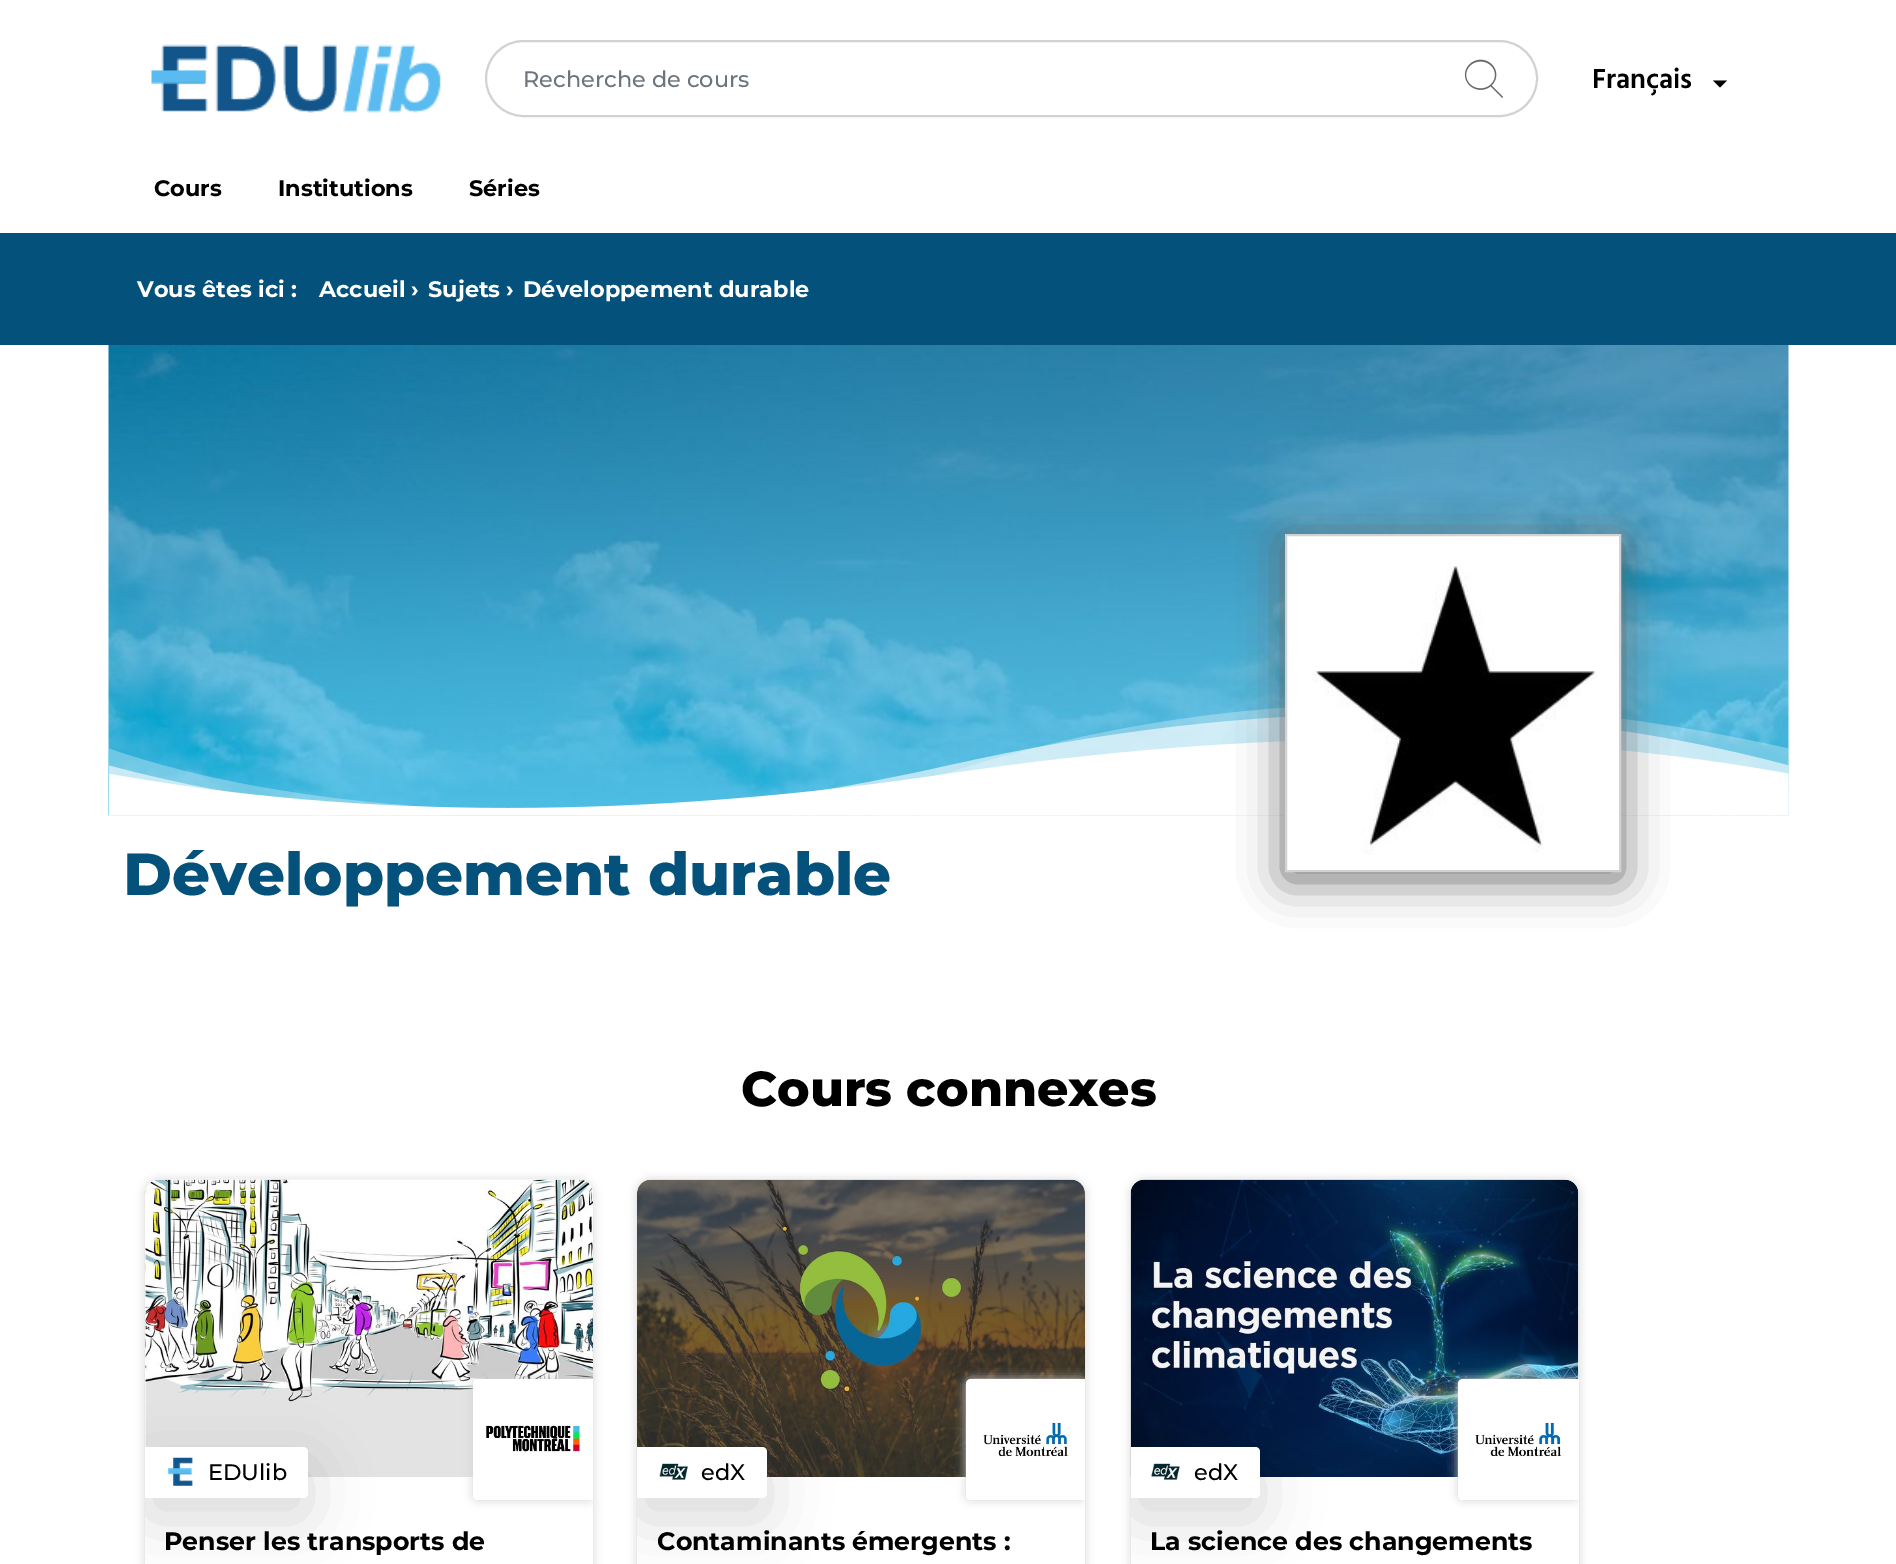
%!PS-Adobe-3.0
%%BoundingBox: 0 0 1896 1564
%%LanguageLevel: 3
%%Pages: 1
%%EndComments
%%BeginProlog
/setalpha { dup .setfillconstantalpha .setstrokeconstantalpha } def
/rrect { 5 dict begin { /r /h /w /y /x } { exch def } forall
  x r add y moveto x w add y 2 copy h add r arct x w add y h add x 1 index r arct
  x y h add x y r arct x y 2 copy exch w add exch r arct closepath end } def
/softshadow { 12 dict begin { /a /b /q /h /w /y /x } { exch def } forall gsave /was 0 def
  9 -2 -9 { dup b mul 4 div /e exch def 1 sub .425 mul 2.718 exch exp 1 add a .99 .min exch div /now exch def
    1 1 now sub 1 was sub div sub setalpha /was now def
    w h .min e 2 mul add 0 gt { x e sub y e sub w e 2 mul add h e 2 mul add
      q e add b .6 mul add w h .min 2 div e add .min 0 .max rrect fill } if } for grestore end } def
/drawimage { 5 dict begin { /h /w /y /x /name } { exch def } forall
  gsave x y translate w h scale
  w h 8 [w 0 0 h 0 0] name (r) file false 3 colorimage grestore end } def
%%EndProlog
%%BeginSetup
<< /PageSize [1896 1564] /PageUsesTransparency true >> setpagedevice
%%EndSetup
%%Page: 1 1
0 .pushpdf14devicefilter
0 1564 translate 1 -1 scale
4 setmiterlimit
1 setgray
0 0 1896 1564 rectfill
(images/1.raw) 151 44 290 69 drawimage
0.824 setgray
2 setlinewidth
486 41 1051 75 37.5 rrect stroke
(images/2.raw) 1464 59 39 39 drawimage
0 setgray
newpath 1713 80.5 moveto 1720 87.5 lineto 1727 80.5 lineto fill
0.016 0.318 0.482 setrgbcolor
0 233 1896 112 rectfill
(images/3.raw) 108 345 1681 471 drawimage
(images/4.raw) 109 707 1680 109 drawimage
0.408 setgray
1285 541 336 338 0 22 1 softshadow
1 setgray
newpath 1286 535 moveto 1620 535 lineto 1620 871 lineto 1286 871 lineto closepath gsave fill grestore
0.824 setgray
stroke
(images/5.raw) 1312 562 285 292 drawimage
145 1180 448 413 14 5 1 softshadow
1 setgray
145 1180 448 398 14 rrect fill
(images/6.raw) 145 1179 448 298 drawimage
gsave
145 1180 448 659 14 rrect clip newpath
0 setgray
145 1468 163 51 5 30 0.15 softshadow
grestore
newpath 145 1447 moveto 303 1447 lineto 306 1447 308 1449 308 1452 curveto 308 1493 lineto 308 1496 306 1498 303 1498 curveto 145 1498 lineto closepath fill
(images/7.raw) 167 1457 26 29 drawimage
gsave
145 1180 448 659 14 rrect clip newpath
0.824 setgray
473 1379 120 121 5 5 1 softshadow
grestore
newpath 478 1379 moveto 593 1379 lineto 593 1500 lineto 478 1500 lineto 475 1500 473 1498 473 1495 curveto 473 1384 lineto 473 1381 475 1379 478 1379 curveto closepath fill
(images/8.raw) 486 1425 94 27 drawimage
0.824 setgray
637 1180 448 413 14 5 1 softshadow
1 setgray
637 1180 448 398 14 rrect fill
(images/9.raw) 637 1179 448 298 drawimage
gsave
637 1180 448 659 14 rrect clip newpath
0 setgray
637 1468 130 51 5 30 0.15 softshadow
grestore
newpath 637 1447 moveto 762 1447 lineto 765 1447 767 1449 767 1452 curveto 767 1493 lineto 767 1496 765 1498 762 1498 curveto 637 1498 lineto closepath fill
(images/10.raw) 659 1463 29 17 drawimage
gsave
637 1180 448 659 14 rrect clip newpath
0.824 setgray
966 1379 119 121 5 5 1 softshadow
grestore
newpath 971 1379 moveto 1085 1379 lineto 1085 1500 lineto 971 1500 lineto 968 1500 966 1498 966 1495 curveto 966 1384 lineto 966 1381 968 1379 971 1379 curveto closepath fill
(images/11.raw) 983 1422 87 35 drawimage
0.824 setgray
1131 1180 448 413 14 5 1 softshadow
1 setgray
1131 1180 448 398 14 rrect fill
(images/12.raw) 1130 1179 449 298 drawimage
gsave
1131 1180 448 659 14 rrect clip newpath
0 setgray
1131 1468 129 51 5 30 0.15 softshadow
grestore
newpath 1131 1447 moveto 1255 1447 lineto 1258 1447 1260 1449 1260 1452 curveto 1260 1493 lineto 1260 1496 1258 1498 1255 1498 curveto 1131 1498 lineto closepath fill
(images/13.raw) 1151 1463 29 17 drawimage
gsave
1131 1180 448 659 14 rrect clip newpath
0.824 setgray
1458 1379 121 121 5 5 1 softshadow
grestore
newpath 1463 1379 moveto 1579 1379 lineto 1579 1500 lineto 1463 1500 lineto 1460 1500 1458 1498 1458 1495 curveto 1458 1384 lineto 1458 1381 1460 1379 1463 1379 curveto closepath fill
(images/14.raw) 1475 1422 87 35 drawimage
/Montserrat-Medium [22.4 0 0 -22.4 0 0] selectfont
0.424 0.459 0.49 setrgbcolor
523 87 moveto (Recherche de cours) show
/Hind-SemiBold [28 0 0 -28 0 0] selectfont
0 setgray
1592 88 moveto (Français) show
/Montserrat-Bold [22.4 0 0 -22.4 0 0] selectfont
154 196 moveto (Cours) show
278 196 moveto (Institutions) show
469 196 moveto (Séries) show
1 setgray
137 297 moveto (Vous êtes ici :) show
319 297 moveto (Accueil) show
411 297 moveto (›) show
428 297 moveto (Sujets) show
506 297 moveto (›) show
523 297 moveto (Développement durable) show
/Montserrat-ExtraBold [59.25 0 0 -59.25 0 0] selectfont
0.016 0.318 0.482 setrgbcolor
123 895 moveto (Développement durable) show
/Montserrat-ExtraBold [49 0 0 -49 0 0] selectfont
0 setgray
741 1106 moveto (Cours connexes) show
/Montserrat-Medium [22.4 0 0 -22.4 0 0] selectfont
208 1480 moveto (EDUlib) show
/Montserrat-Bold [25.25 0 0 -25.25 0 0] selectfont
164 1550 moveto (Penser les transports de) show
/Montserrat-Medium [22.4 0 0 -22.4 0 0] selectfont
701 1480 moveto (edX) show
/Montserrat-Bold [25.25 0 0 -25.25 0 0] selectfont
657 1550 moveto (Contaminants émergents :) show
/Montserrat-Medium [22.4 0 0 -22.4 0 0] selectfont
1194 1480 moveto (edX) show
/Montserrat-Bold [25.25 0 0 -25.25 0 0] selectfont
1150 1550 moveto (La science des changements) show
.poppdf14devicefilter showpage
%%EOF
